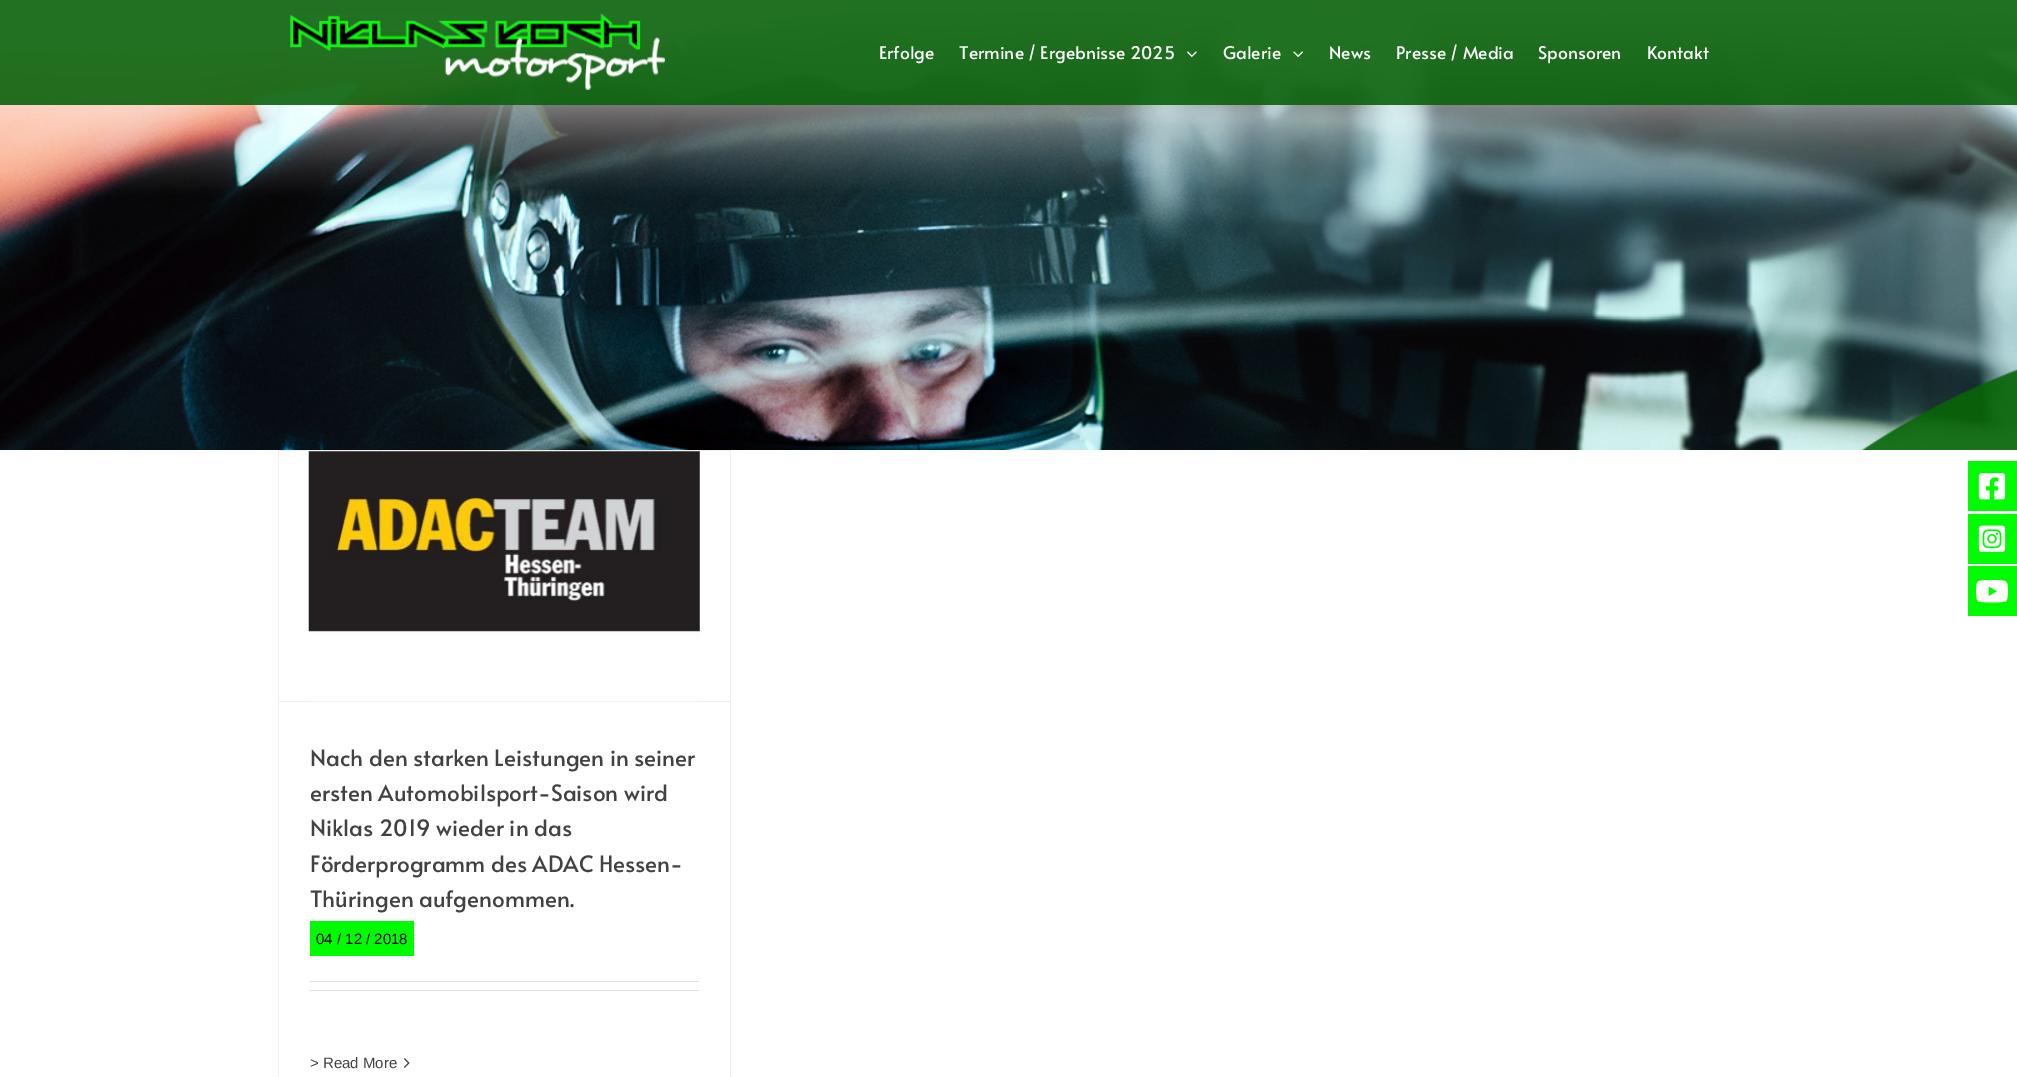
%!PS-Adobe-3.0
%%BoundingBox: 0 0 2017 1077
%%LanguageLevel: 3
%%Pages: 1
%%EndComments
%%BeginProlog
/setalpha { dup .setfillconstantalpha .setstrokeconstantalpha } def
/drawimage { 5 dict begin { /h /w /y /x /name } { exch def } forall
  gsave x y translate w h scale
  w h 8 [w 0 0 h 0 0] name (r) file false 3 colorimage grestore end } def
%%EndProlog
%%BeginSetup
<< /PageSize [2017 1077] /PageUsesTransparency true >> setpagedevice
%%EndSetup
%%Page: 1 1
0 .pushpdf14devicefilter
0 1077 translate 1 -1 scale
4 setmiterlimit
1 setgray
0 0 2017 1077 rectfill
(images/1.raw) 0 0 2017 450 drawimage
0.9 setalpha
0.039 0.384 0.043 setrgbcolor
0 0 2017 105 rectfill
1 setalpha
(images/2.raw) 290 13 375 77 drawimage
(images/3.raw) 1187 51 10 6 drawimage
(images/4.raw) 1293 51 10 6 drawimage
0.937 0.933 0.91 setrgbcolor
278 450 453 1 rectfill
730 450 1 627 rectfill
278 450 1 627 rectfill
279 701 451 1 rectfill
(images/5.raw) 308 451 392 251 drawimage
0 0.988 0 setrgbcolor
310 921 104 35 rectfill
0.878 0.871 0.871 setrgbcolor
310 981 389 1 rectfill
310 990 389 1 rectfill
(images/6.raw) 403 1058 7 10 drawimage
0 0.988 0 setrgbcolor
1968 461 49 50 rectfill
(images/7.raw) 1978 473 28 27 drawimage
1968 514 49 50 rectfill
(images/8.raw) 1978 525 28 27 drawimage
1968 566 49 50 rectfill
(images/9.raw) 1976 580 32 23 drawimage
/Alata-Regular [17.5 0 0 -17.5 0 0] selectfont
1 setgray
879 59 moveto (Erfolge) show
959 59 moveto (Termine / Ergebnisse 2025) show
1223 59 moveto (Galerie) show
1329 59 moveto (News) show
1396 59 moveto (Presse / Media) show
1538 59 moveto (Sponsoren) show
1647 59 moveto (Kontakt) show
/Alata-Regular [22.5 0 0 -22.5 0 0] selectfont
0.259 setgray
310 766 moveto (Nach den starken Leistungen in seiner) show
310 801 moveto (ersten Automobilsport-Saison wird) show
310 836 moveto (Niklas 2019 wieder in das) show
310 872 moveto (Förderprogramm des ADAC Hessen-) show
310 907 moveto (Thüringen aufgenommen.) show
/LiberationSans-Regular [15 0 0 -15 0 0] selectfont
0 setgray
316 944 moveto (04 / 12 / 2018) show
0.259 setgray
310 1068 moveto (> Read More) show
.poppdf14devicefilter showpage
%%EOF
